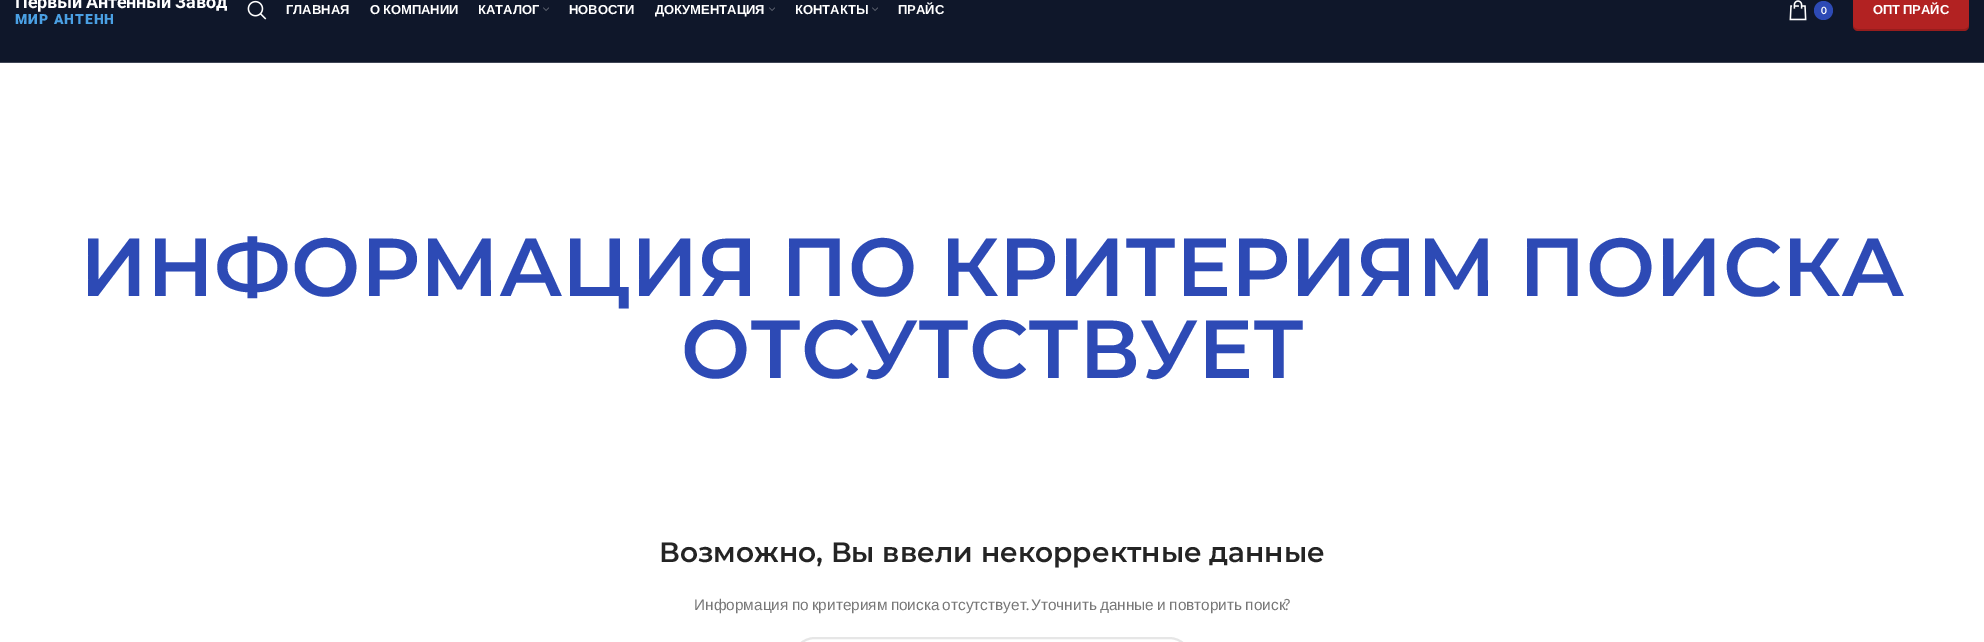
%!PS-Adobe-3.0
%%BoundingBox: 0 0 1984 642
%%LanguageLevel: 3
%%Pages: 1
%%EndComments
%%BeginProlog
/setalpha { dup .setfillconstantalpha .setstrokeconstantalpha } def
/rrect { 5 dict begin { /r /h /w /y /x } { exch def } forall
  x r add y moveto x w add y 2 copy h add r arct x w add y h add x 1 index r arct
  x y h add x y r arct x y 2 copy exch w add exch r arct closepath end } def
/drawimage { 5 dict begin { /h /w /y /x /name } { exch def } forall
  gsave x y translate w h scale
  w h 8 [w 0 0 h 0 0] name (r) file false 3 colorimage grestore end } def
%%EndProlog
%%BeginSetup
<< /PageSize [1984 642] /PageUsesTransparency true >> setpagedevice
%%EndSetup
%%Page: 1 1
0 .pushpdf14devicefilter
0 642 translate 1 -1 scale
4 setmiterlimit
1 setgray
0 0 1984 642 rectfill
0.059 0.09 0.165 setrgbcolor
0 0 1984 62 rectfill
0.247 0.271 0.333 setrgbcolor
0 62 1984 1 rectfill
(images/1.raw) 247 0 20 20 drawimage
(images/2.raw) 543 7 6 4 drawimage
(images/2.raw) 769 7 6 4 drawimage
(images/2.raw) 872 7 6 4 drawimage
(images/3.raw) 1789 0 18 21 drawimage
0.176 0.29 0.71 setrgbcolor
newpath 1823.5 10.5 9.5 0 360 arc closepath fill
0.698 0.133 0.133 setrgbcolor
1853 -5 116 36 5 rrect fill
0.15 setalpha
0 setgray
newpath 1853 24 moveto 1853 26 lineto 1853 29 1855 31 1858 31 curveto 1964 31 lineto 1967 31 1969 29 1969 26 curveto 1969 24 lineto 1969 27 1967 29 1964 29 curveto 1858 29 lineto 1855 29 1853 27 1853 24 curveto closepath fill
1 setalpha
0.902 setgray
2 setlinewidth
793 638 398 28 22 rrect stroke
/Roboto-Bold [18 0 0 -18 0 0] selectfont
1 setgray
15 8 moveto -0.2 0 (Первый Антенный Завод) ashow
/Roboto-Black [14 0 0 -14 0 0] selectfont
0.29 0.627 0.894 setrgbcolor
15 24 moveto 1 0 (МИР АНТЕНН) ashow
/LiberationSans-Bold [13 0 0 -13 0 0] selectfont
1 setgray
286 14 moveto (ГЛАВНАЯ) show
370 14 moveto -1 0 32 (О КОМПАНИИ) widthshow
478 14 moveto (КАТАЛОГ) show
569 14 moveto (НОВОСТИ) show
655 14 moveto (ДОКУМЕНТАЦИЯ) show
795 14 moveto (КОНТАКТЫ) show
898 14 moveto (ПРАЙС) show
/Lato-Bold [10 0 0 -10 0 0] selectfont
1821 14 moveto (0) show
/LiberationSans-Bold [13 0 0 -13 0 0] selectfont
1873 14 moveto -1 0 32 (ОПТ ПРАЙС) widthshow
/Montserrat-SemiBold [82 0 0 -82 0 0] selectfont
0.176 0.29 0.71 setrgbcolor
80 296 moveto (ИНФОРМАЦИЯ ПО КРИТЕРИЯМ ПОИСКА) show
681 378 moveto (ОТСУТСТВУЕТ) show
/Montserrat-SemiBold [28 0 0 -28 0 0] selectfont
0.141 setgray
659 562 moveto (Возможно, Вы ввели некорректные данные) show
/LiberationSans-Regular [15.4 0 0 -15.4 0 0] selectfont
0.467 setgray
694 610 moveto -1 0 32 (Информация по критериям поиска отсутствует) widthshow
/Lato-Regular [15.4 0 0 -15.4 0 0] selectfont
1026 610 moveto (.) show
/LiberationSans-Regular [15.4 0 0 -15.4 0 0] selectfont
1031 610 moveto -1 0 32 (Уточнить данные и повторить поиск) widthshow
/Lato-Regular [15.4 0 0 -15.4 0 0] selectfont
1284 610 moveto (?) show
.poppdf14devicefilter showpage
%%EOF
